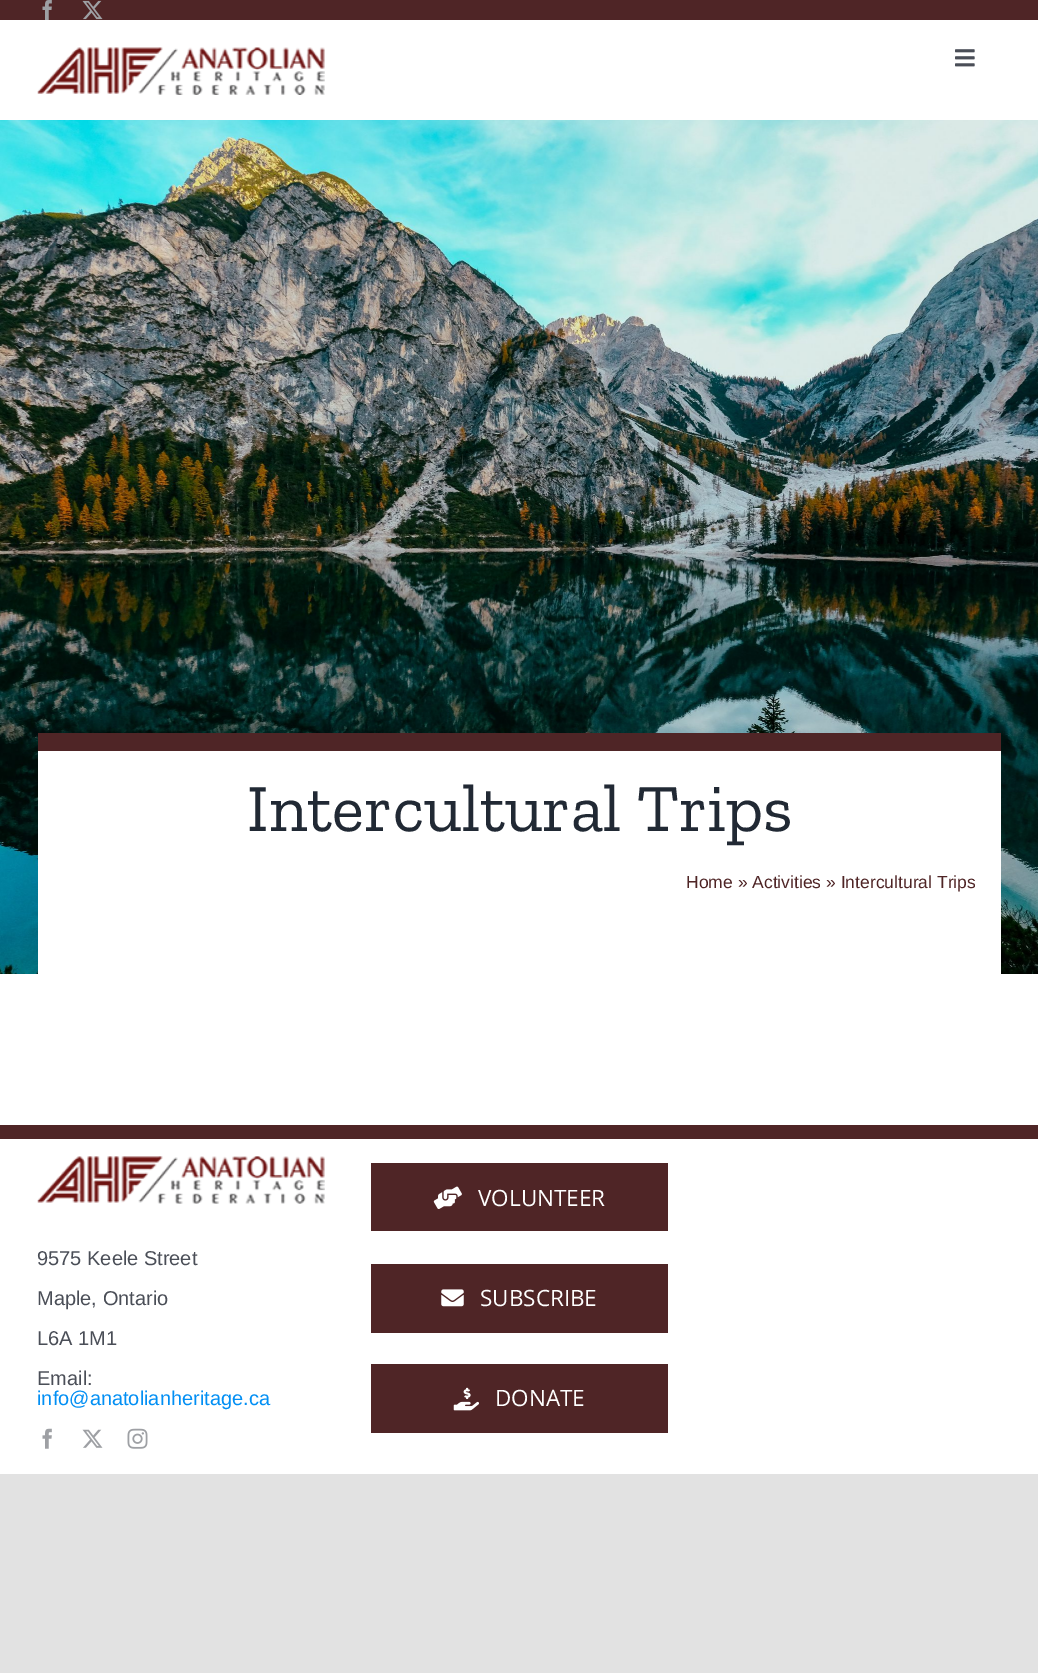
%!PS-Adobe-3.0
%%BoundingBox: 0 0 1038 1673
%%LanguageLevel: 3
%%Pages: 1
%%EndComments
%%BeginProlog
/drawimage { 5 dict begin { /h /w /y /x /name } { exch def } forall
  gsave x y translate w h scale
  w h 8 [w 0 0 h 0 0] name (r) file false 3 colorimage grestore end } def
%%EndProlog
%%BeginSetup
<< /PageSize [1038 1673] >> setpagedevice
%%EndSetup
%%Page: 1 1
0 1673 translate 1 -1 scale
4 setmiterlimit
0.886 setgray
0 0 1038 1673 rectfill
1 setgray
0 20 1038 1454 rectfill
0.31 0.145 0.149 setrgbcolor
0 0 1038 20 rectfill
(images/1.raw) 42 0 10 20 drawimage
(images/2.raw) 82 0 21 20 drawimage
(images/3.raw) 37 47 288 48 drawimage
(images/4.raw) 955 49 20 18 drawimage
(images/5.raw) 0 120 1038 854 drawimage
38 733 963 18 rectfill
1 setgray
38 751 963 223 rectfill
0.31 0.145 0.149 setrgbcolor
0 1125 1038 14 rectfill
(images/6.raw) 37 1156 288 48 drawimage
(images/7.raw) 42 1428 10 21 drawimage
(images/8.raw) 82 1429 21 19 drawimage
(images/9.raw) 127 1428 21 21 drawimage
371 1163 297 68 rectfill
(images/10.raw) 433 1186 29 23 drawimage
371 1264 297 69 rectfill
(images/11.raw) 441 1289 23 18 drawimage
371 1364 297 69 rectfill
(images/12.raw) 453 1387 26 24 drawimage
/ZillaSlab-Regular [67.5 0 0 -67.5 0 0] selectfont
0.129 0.161 0.204 setrgbcolor
247 831 moveto (Intercultural Trips) show
/LiberationSans-Regular [17.5 0 0 -17.5 0 0] selectfont
0.31 0.145 0.149 setrgbcolor
686 888 moveto (Home » Activities » Intercultural Trips) show
/LiberationSans-Regular [20 0 0 -20 0 0] selectfont
0.29 0.306 0.341 setrgbcolor
37 1265 moveto (9575 Keele Street) show
37 1305 moveto (Maple, Ontario) show
37 1345 moveto (L6A 1M1) show
37 1385 moveto (Email:) show
0.008 0.561 0.957 setrgbcolor
37 1405 moveto (info@anatolianheritage.ca) show
/OpenSans-Regular [22.5 0 0 -22.5 0 0] selectfont
1 setgray
478 1206 moveto (VOLUNTEER) show
480 1306 moveto (SUBSCRIBE) show
495 1406 moveto (DONATE) show
showpage
%%EOF
